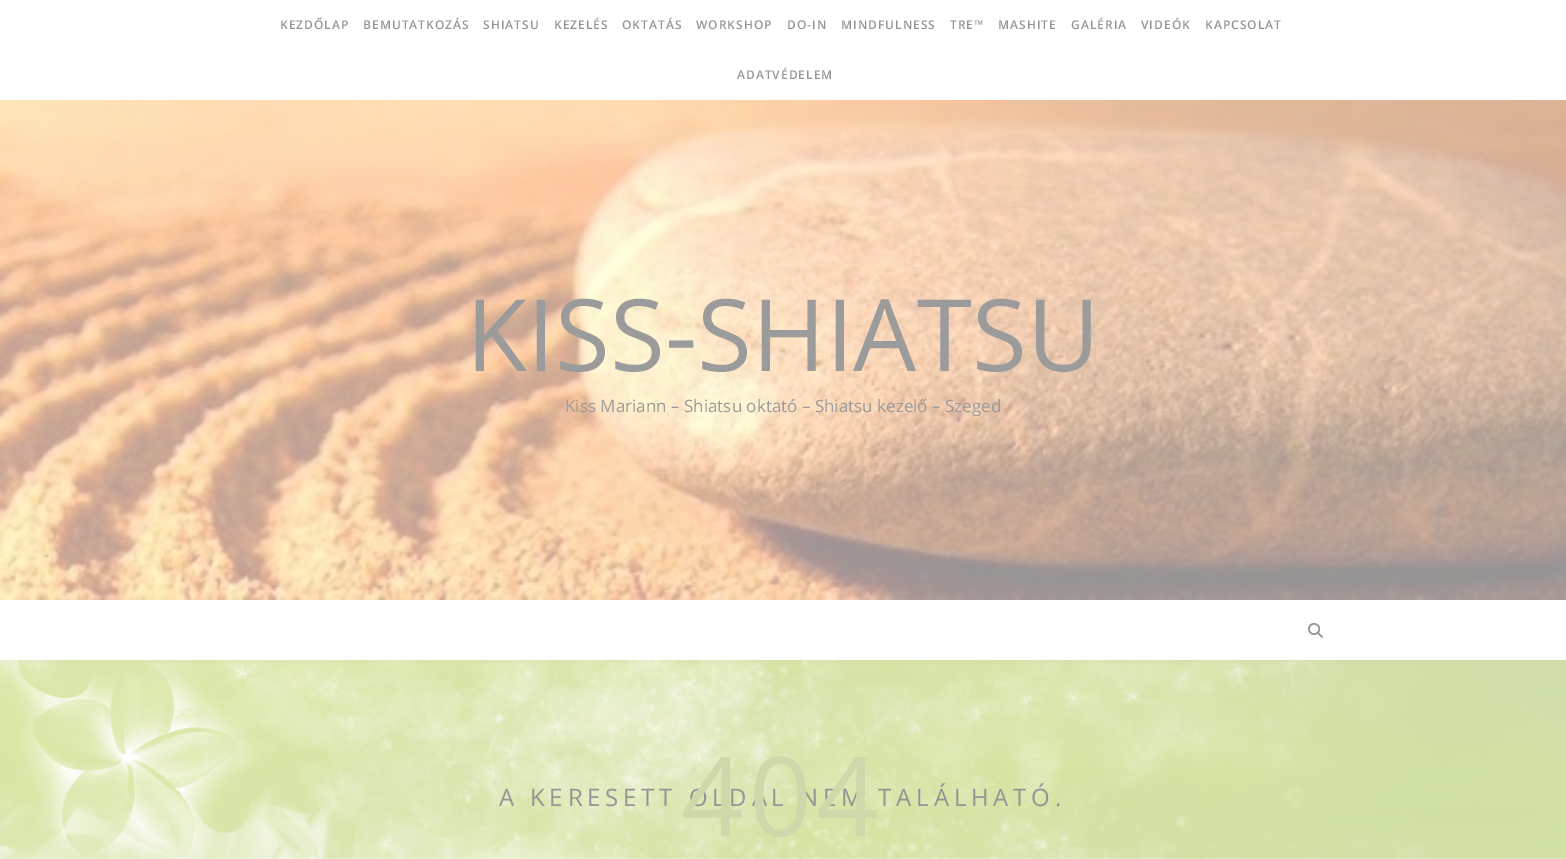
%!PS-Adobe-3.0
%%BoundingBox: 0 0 1566 859
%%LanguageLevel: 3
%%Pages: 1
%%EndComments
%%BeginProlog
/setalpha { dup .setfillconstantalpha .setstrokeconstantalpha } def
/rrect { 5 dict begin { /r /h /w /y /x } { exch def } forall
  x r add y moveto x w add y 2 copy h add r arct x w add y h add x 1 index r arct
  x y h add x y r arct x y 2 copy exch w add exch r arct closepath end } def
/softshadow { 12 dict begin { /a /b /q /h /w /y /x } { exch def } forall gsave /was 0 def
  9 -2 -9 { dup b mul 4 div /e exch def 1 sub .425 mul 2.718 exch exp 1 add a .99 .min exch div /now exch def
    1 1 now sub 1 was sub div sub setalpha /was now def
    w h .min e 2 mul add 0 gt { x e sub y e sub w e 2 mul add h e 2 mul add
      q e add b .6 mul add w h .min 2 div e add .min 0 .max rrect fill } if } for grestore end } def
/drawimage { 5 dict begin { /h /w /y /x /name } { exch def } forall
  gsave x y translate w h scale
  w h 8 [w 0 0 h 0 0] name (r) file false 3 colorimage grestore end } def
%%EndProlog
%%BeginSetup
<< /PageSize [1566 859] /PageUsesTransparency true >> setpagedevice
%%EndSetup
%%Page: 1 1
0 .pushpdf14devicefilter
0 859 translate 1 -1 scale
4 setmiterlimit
1 setgray
0 0 1566 859 rectfill
(images/1.raw) 0 660 1566 199 drawimage
(images/2.raw) 0 100 1566 500 drawimage
0.58 setgray
0 601 1566 60 0 2.5 0.1 softshadow
1 setgray
0 600 1566 60 rectfill
(images/3.raw) 1308 622 15 16 drawimage
/OpenSans-SemiBold [12 0 0 -12 0 0] selectfont
0.58 setgray
280 29 moveto 1 0 (KEZDŐLAP) ashow
363 29 moveto 1 0 (BEMUTATKOZÁS) ashow
483 29 moveto 1 0 (SHIATSU) ashow
554 29 moveto 1 0 (KEZELÉS) ashow
622 29 moveto 1 0 (OKTATÁS) ashow
696 29 moveto 1 0 (WORKSHOP) ashow
787 29 moveto 1 0 (DO-IN) ashow
841 29 moveto 1 0 (MINDFULNESS) ashow
950 29 moveto 1 0 (TRE™) ashow
998 29 moveto 1 0 (MASHITE) ashow
1071 29 moveto 1 0 (GALÉRIA) ashow
1141 29 moveto 1 0 (VIDEÓK) ashow
1205 29 moveto 1 0 (KAPCSOLAT) ashow
737 79 moveto 1 0 (ADATVÉDELEM) ashow
/OpenSans-Regular [100 0 0 -100 0 0] selectfont
0.608 setgray
466 371 moveto (KISS-SHIATSU) show
/OpenSans-Regular [17 0 0 -17 0 0] selectfont
565 412 moveto (Kiss Mariann – Shiatsu oktató – Shiatsu kezelő – Szeged) show
/OpenSans-Regular [24 0 0 -24 0 0] selectfont
0.58 setgray
499 806 moveto 4.8 0 (A KERESETT OLDAL NEM TALÁLHATÓ.) ashow
/OpenSans-Regular [110 0 0 -110 0 0] selectfont
0.804 0.847 0.671 setrgbcolor
681 836 moveto 4.8 0 (404) ashow
.poppdf14devicefilter showpage
%%EOF
